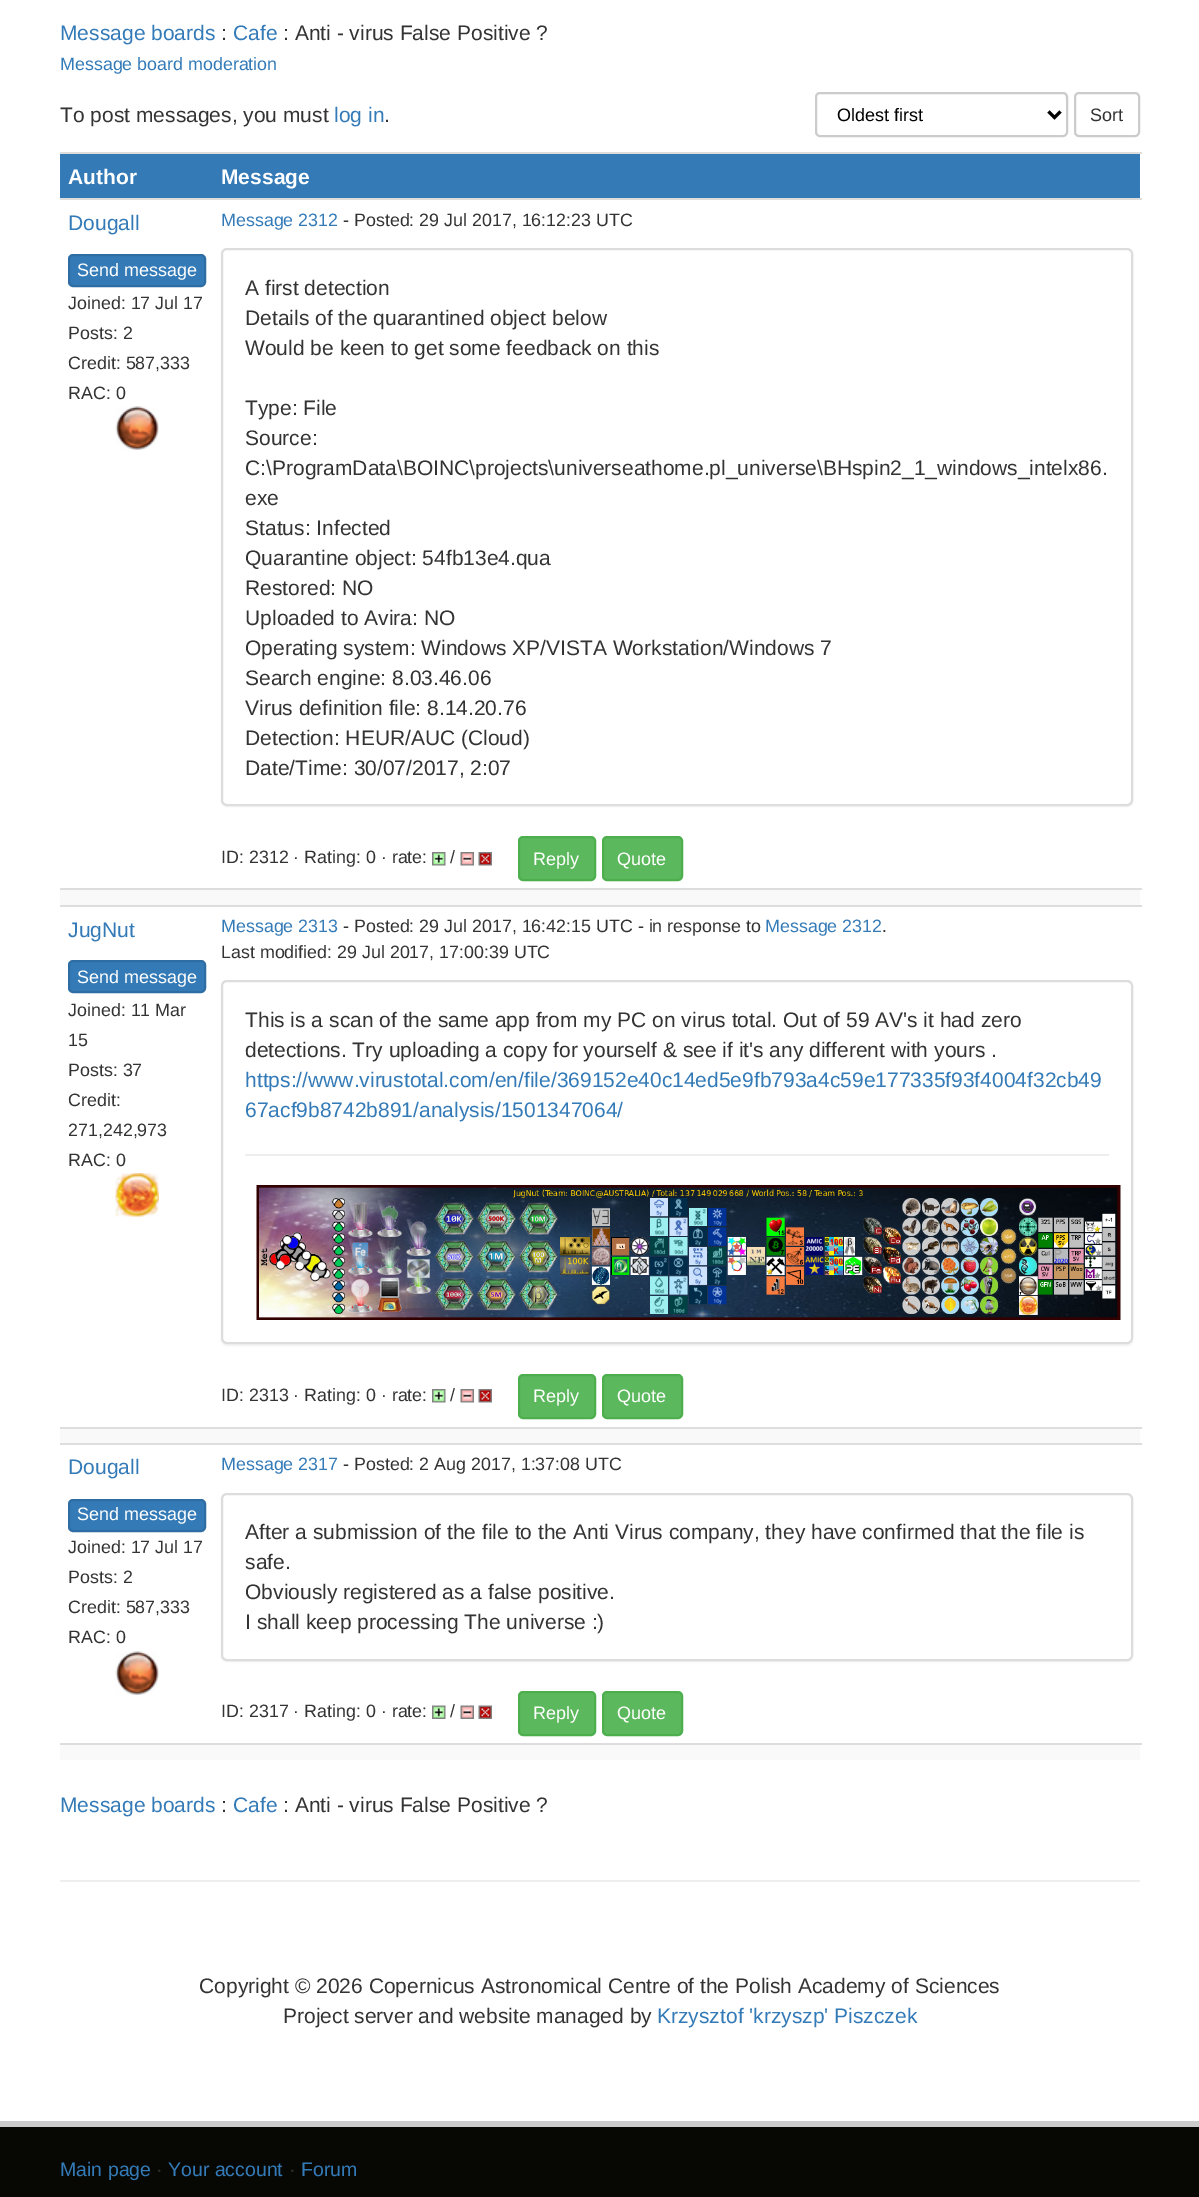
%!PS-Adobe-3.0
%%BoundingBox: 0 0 1199 2197
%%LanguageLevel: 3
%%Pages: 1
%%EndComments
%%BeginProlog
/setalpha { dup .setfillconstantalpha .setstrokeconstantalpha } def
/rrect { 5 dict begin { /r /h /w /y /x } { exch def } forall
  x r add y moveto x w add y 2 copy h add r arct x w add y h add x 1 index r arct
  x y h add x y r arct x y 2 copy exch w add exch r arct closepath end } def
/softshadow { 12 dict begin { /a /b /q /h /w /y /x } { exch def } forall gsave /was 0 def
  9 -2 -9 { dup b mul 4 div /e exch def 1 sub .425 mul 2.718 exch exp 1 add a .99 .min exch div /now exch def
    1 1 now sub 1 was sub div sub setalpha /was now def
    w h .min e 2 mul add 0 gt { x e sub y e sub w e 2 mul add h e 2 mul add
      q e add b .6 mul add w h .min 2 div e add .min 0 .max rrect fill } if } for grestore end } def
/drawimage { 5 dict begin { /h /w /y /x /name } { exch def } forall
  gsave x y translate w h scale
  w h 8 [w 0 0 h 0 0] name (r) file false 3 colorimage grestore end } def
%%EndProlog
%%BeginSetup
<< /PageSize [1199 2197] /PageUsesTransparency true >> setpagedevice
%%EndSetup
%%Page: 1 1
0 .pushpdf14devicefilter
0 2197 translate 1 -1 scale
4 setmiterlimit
1 setgray
0 0 1199 2197 rectfill
0.925 setgray
newpath 819 94 moveto 1064 94 lineto 1067 94 1066 109 1066 110 curveto 1066 134 lineto 1067 134 1067 133 1067 132 curveto 1067 96 lineto 1067 94 1066 93 1064 93 curveto 819 93 lineto 817 93 816 94 816 96 curveto 816 98 lineto 816 96 817 94 819 94 curveto closepath fill
0.8 setgray
2 setlinewidth
816 93 251 43 4 rrect stroke
0 setgray
3 setlinewidth
newpath 1048.5 111.5 moveto 1054.5 117.5 lineto 1060.5 111.5 lineto stroke
0.8 setgray
2 setlinewidth
1075 93 64 43 4 rrect stroke
0.2 0.478 0.718 setrgbcolor
60 154 1080 44 rectfill
0.867 setgray
60 152 1082 2 rectfill
0.2 0.478 0.718 setrgbcolor
69 255 136 31 4 rrect gsave fill grestore
0.18 0.427 0.643 setrgbcolor
stroke
(images/1.raw) 115 406 44 44 drawimage
0.867 setgray
60 198 1082 2 rectfill
0 setgray
221 249 912 558 6 1 0.05 softshadow
1 setgray
222 249 910 556 5 rrect gsave fill grestore
0.867 setgray
stroke
(images/2.raw) 432 852 14 14 drawimage
(images/3.raw) 460 852 14 14 drawimage
(images/4.raw) 478 852 14 14 drawimage
0.361 0.722 0.361 setrgbcolor
519 837 76 43 4 rrect gsave fill grestore
0.298 0.682 0.298 setrgbcolor
stroke
0.361 0.722 0.361 setrgbcolor
603 837 79 43 4 rrect gsave fill grestore
0.298 0.682 0.298 setrgbcolor
stroke
0.976 setgray
60 890 1080 15 rectfill
0.867 setgray
60 888 1082 2 rectfill
0.2 0.478 0.718 setrgbcolor
69 961 136 31 4 rrect gsave fill grestore
0.18 0.427 0.643 setrgbcolor
stroke
(images/5.raw) 115 1173 44 44 drawimage
0.867 setgray
60 905 1082 2 rectfill
0 setgray
221 981 912 365 6 1 0.05 softshadow
1 setgray
222 981 910 362 5 rrect gsave fill grestore
0.867 setgray
stroke
0.933 setgray
245 1154 864 2 rectfill
(images/6.raw) 256 1185 865 135 drawimage
(images/2.raw) 432 1389 14 14 drawimage
(images/3.raw) 460 1389 14 14 drawimage
(images/4.raw) 478 1389 14 14 drawimage
0.361 0.722 0.361 setrgbcolor
519 1375 76 43 4 rrect gsave fill grestore
0.298 0.682 0.298 setrgbcolor
stroke
0.361 0.722 0.361 setrgbcolor
603 1375 79 43 4 rrect gsave fill grestore
0.298 0.682 0.298 setrgbcolor
stroke
0.976 setgray
60 1429 1080 14 rectfill
0.867 setgray
60 1427 1082 2 rectfill
0.2 0.478 0.718 setrgbcolor
69 1500 136 31 4 rrect gsave fill grestore
0.18 0.427 0.643 setrgbcolor
stroke
(images/1.raw) 115 1651 44 44 drawimage
0.867 setgray
60 1443 1082 2 rectfill
0 setgray
221 1494 912 168 6 1 0.05 softshadow
1 setgray
222 1494 910 166 5 rrect gsave fill grestore
0.867 setgray
stroke
(images/7.raw) 432 1705 14 14 drawimage
(images/8.raw) 460 1705 14 14 drawimage
(images/9.raw) 478 1705 14 14 drawimage
0.361 0.722 0.361 setrgbcolor
519 1692 76 43 4 rrect gsave fill grestore
0.298 0.682 0.298 setrgbcolor
stroke
0.361 0.722 0.361 setrgbcolor
603 1692 79 43 4 rrect gsave fill grestore
0.298 0.682 0.298 setrgbcolor
stroke
0.976 setgray
60 1745 1080 15 rectfill
0.867 setgray
60 1743 1082 2 rectfill
0.933 setgray
60 1880 1080 2 rectfill
0.027 0.031 0.012 setrgbcolor
0 2127 1199 70 rectfill
0.8 setgray
0 2121 1199 6 rectfill
/LiberationSans-Regular [21 0 0 -21 0 0] selectfont
0.2 0.478 0.718 setrgbcolor
60 40 moveto (Message boards) show
0.2 setgray
221 40 moveto (:) show
0.2 0.478 0.718 setrgbcolor
233 40 moveto (Cafe) show
0.2 setgray
283 40 moveto (: Anti - virus False Positive ?) show
/LiberationSans-Regular [17.85 0 0 -17.85 0 0] selectfont
0.2 0.478 0.718 setrgbcolor
60 70 moveto (Message board moderation) show
/LiberationSans-Regular [21 0 0 -21 0 0] selectfont
0.2 setgray
60 122 moveto (To post messages, you must) show
0.2 0.478 0.718 setrgbcolor
334 122 moveto (log in) show
0.2 setgray
384 122 moveto (.) show
/LiberationSans-Regular [18 0 0 -18 0 0] selectfont
0 setgray
837 121 moveto (Oldest first) show
0.2 setgray
1090 121 moveto (Sort) show
/LiberationSans-Bold [21 0 0 -21 0 0] selectfont
1 setgray
68 184 moveto (Author) show
221 184 moveto (Message) show
/LiberationSans-Regular [21 0 0 -21 0 0] selectfont
0.2 0.478 0.718 setrgbcolor
68 230 moveto (Dougall) show
/LiberationSans-Regular [18 0 0 -18 0 0] selectfont
1 setgray
77 276 moveto (Send message) show
/LiberationSans-Regular [17.85 0 0 -17.85 0 0] selectfont
0.2 setgray
68 309 moveto (Joined: 17 Jul 17) show
68 339 moveto (Posts: 2) show
68 369 moveto (Credit: 587,333) show
68 399 moveto (RAC: 0) show
0.2 0.478 0.718 setrgbcolor
221 226 moveto (Message 2312) show
0.2 setgray
343 226 moveto (- Posted: 29 Jul 2017, 16:12:23 UTC) show
/LiberationSans-Regular [21 0 0 -21 0 0] selectfont
245 295 moveto (A first detection) show
245 325 moveto (Details of the quarantined object below) show
245 355 moveto (Would be keen to get some feedback on this) show
245 415 moveto (Type: File) show
245 445 moveto (Source:) show
245 475 moveto (C:\\ProgramData\\BOINC\\projects\\universeathome.pl_universe\\BHspin2_1_windows_intelx86.) show
245 505 moveto (exe) show
245 535 moveto (Status: Infected) show
245 565 moveto (Quarantine object: 54fb13e4.qua) show
245 595 moveto (Restored: NO) show
245 625 moveto (Uploaded to Avira: NO) show
245 655 moveto (Operating system: Windows XP/VISTA Workstation/Windows 7) show
245 685 moveto (Search engine: 8.03.46.06) show
245 715 moveto (Virus definition file: 8.14.20.76) show
245 745 moveto (Detection: HEUR/AUC \(Cloud\)) show
245 775 moveto (Date/Time: 30/07/2017, 2:07) show
/LiberationSans-Regular [17.85 0 0 -17.85 0 0] selectfont
221 863 moveto (ID: 2312 · Rating: 0 · rate:) show
450 863 moveto (/) show
/LiberationSans-Regular [18 0 0 -18 0 0] selectfont
1 setgray
533 865 moveto (Reply) show
617 865 moveto (Quote) show
/LiberationSans-Regular [21 0 0 -21 0 0] selectfont
0.2 0.478 0.718 setrgbcolor
68 937 moveto (JugNut) show
/LiberationSans-Regular [18 0 0 -18 0 0] selectfont
1 setgray
77 983 moveto (Send message) show
/LiberationSans-Regular [17.85 0 0 -17.85 0 0] selectfont
0.2 setgray
68 1016 moveto (Joined: 11 Mar) show
68 1046 moveto (15) show
68 1076 moveto (Posts: 37) show
68 1106 moveto (Credit:) show
68 1136 moveto (271,242,973) show
68 1166 moveto (RAC: 0) show
0.2 0.478 0.718 setrgbcolor
221 932 moveto (Message 2313) show
0.2 setgray
343 932 moveto (- Posted: 29 Jul 2017, 16:42:15 UTC - in response to) show
0.2 0.478 0.718 setrgbcolor
765 932 moveto (Message 2312) show
0.2 setgray
882 932 moveto (.) show
221 958 moveto (Last modified: 29 Jul 2017, 17:00:39 UTC) show
/LiberationSans-Regular [21 0 0 -21 0 0] selectfont
245 1027 moveto (This is a scan of the same app from my PC on virus total. Out of 59 AV's it had zero) show
245 1057 moveto (detections. Try uploading a copy for yourself & see if it's any different with yours .) show
0.2 0.478 0.718 setrgbcolor
245 1087 moveto (https://www.virustotal.com/en/file/369152e40c14ed5e9fb793a4c59e177335f93f4004f32cb49) show
245 1117 moveto (67acf9b8742b891/analysis/1501347064/) show
/LiberationSans-Regular [17.85 0 0 -17.85 0 0] selectfont
0.2 setgray
221 1401 moveto (ID: 2313 · Rating: 0 · rate:) show
450 1401 moveto (/) show
/LiberationSans-Regular [18 0 0 -18 0 0] selectfont
1 setgray
533 1402 moveto (Reply) show
617 1402 moveto (Quote) show
/LiberationSans-Regular [21 0 0 -21 0 0] selectfont
0.2 0.478 0.718 setrgbcolor
68 1474 moveto (Dougall) show
/LiberationSans-Regular [18 0 0 -18 0 0] selectfont
1 setgray
77 1520 moveto (Send message) show
/LiberationSans-Regular [17.85 0 0 -17.85 0 0] selectfont
0.2 setgray
68 1553 moveto (Joined: 17 Jul 17) show
68 1583 moveto (Posts: 2) show
68 1613 moveto (Credit: 587,333) show
68 1643 moveto (RAC: 0) show
0.2 0.478 0.718 setrgbcolor
221 1470 moveto (Message 2317) show
0.2 setgray
343 1470 moveto (- Posted: 2 Aug 2017, 1:37:08 UTC) show
/LiberationSans-Regular [21 0 0 -21 0 0] selectfont
245 1539 moveto (After a submission of the file to the Anti Virus company, they have confirmed that the file is) show
245 1569 moveto (safe.) show
245 1599 moveto (Obviously registered as a false positive.) show
245 1629 moveto (I shall keep processing The universe :\)) show
/LiberationSans-Regular [17.85 0 0 -17.85 0 0] selectfont
221 1717 moveto (ID: 2317 · Rating: 0 · rate:) show
450 1717 moveto (/) show
/LiberationSans-Regular [18 0 0 -18 0 0] selectfont
1 setgray
533 1719 moveto (Reply) show
617 1719 moveto (Quote) show
/LiberationSans-Regular [21 0 0 -21 0 0] selectfont
0.2 0.478 0.718 setrgbcolor
60 1812 moveto (Message boards) show
0.2 setgray
221 1812 moveto (:) show
0.2 0.478 0.718 setrgbcolor
233 1812 moveto (Cafe) show
0.2 setgray
283 1812 moveto (: Anti - virus False Positive ?) show
199 1993 moveto (Copyright © 2026 Copernicus Astronomical Centre of the Polish Academy of Sciences) show
283 2023 moveto (Project server and website managed by) show
0.2 0.478 0.718 setrgbcolor
657 2023 moveto (Krzysztof 'krzyszp' Piszczek) show
/LiberationSans-Regular [19.5 0 0 -19.5 0 0] selectfont
60 2176 moveto (Main page) show
0.2 setgray
156 2176 moveto (·) show
0.2 0.478 0.718 setrgbcolor
168 2176 moveto (Your account) show
0.2 setgray
289 2176 moveto (·) show
0.2 0.478 0.718 setrgbcolor
301 2176 moveto (Forum) show
.poppdf14devicefilter showpage
%%EOF
